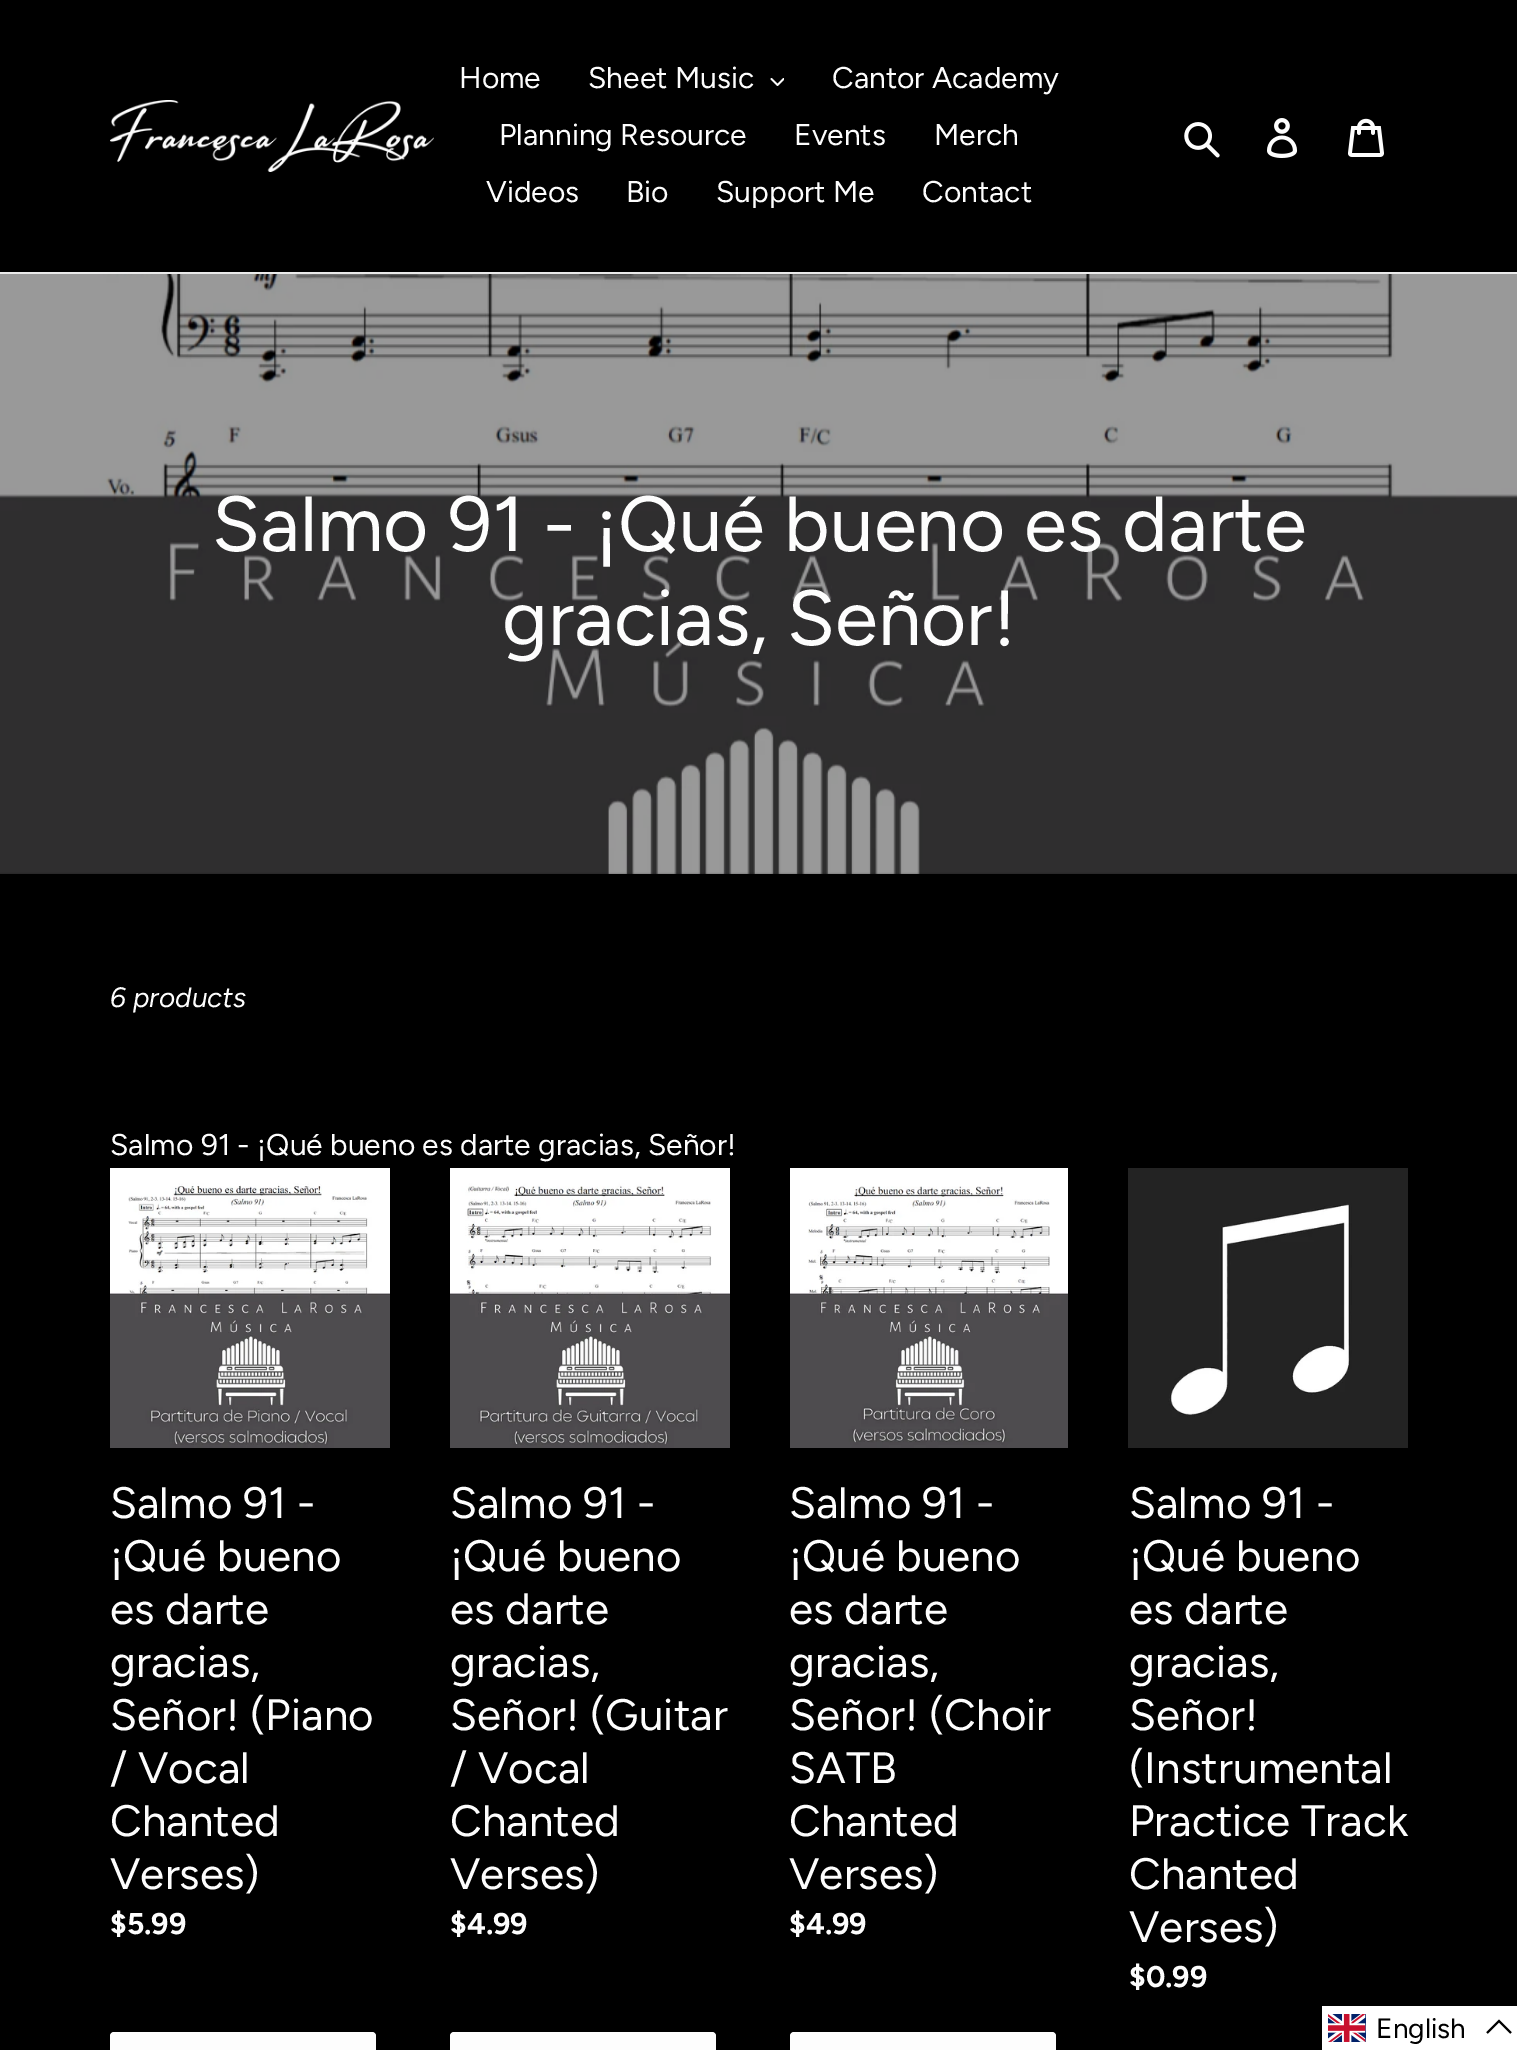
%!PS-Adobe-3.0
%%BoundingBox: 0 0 1517 2050
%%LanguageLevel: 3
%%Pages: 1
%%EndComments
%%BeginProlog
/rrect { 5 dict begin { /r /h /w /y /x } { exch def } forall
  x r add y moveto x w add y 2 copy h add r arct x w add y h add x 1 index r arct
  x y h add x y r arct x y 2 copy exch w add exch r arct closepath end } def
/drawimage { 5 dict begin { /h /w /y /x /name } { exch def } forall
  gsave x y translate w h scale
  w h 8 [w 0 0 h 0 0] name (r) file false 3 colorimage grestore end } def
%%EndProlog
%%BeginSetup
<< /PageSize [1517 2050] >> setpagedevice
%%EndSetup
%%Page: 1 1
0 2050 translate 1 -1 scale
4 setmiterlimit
0 setgray
0 0 1517 2050 rectfill
0.922 setgray
0 272 1517 2 rectfill
(images/1.raw) 110 100 324 72 drawimage
(images/2.raw) 770 78 14 8 drawimage
(images/3.raw) 1184 122 36 36 drawimage
(images/4.raw) 1267 118 31 40 drawimage
(images/5.raw) 1348 118 36 39 drawimage
(images/6.raw) 0 274 1517 600 drawimage
(images/7.raw) 110 1168 280 280 drawimage
0.992 setgray
110 2032 266 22 4 rrect fill
(images/8.raw) 450 1168 280 280 drawimage
450 2032 266 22 4 rrect fill
(images/9.raw) 790 1168 278 280 drawimage
790 2032 266 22 4 rrect fill
(images/10.raw) 1128 1168 280 280 drawimage
1 setgray
1322 2006 195 44 rectfill
(images/11.raw) 1328 2014 38 28 drawimage
0 setgray
2 setlinewidth
newpath 1511 2033 moveto 1499 2021 lineto 1487 2033 lineto stroke
/Figtree-Regular [30 0 0 -30 0 0] selectfont
0.992 setgray
459 88 moveto (Home) show
588 88 moveto (Sheet Music) show
832 88 moveto (Cantor Academy) show
499 145 moveto (Planning Resource) show
794 145 moveto (Events) show
934 145 moveto (Merch) show
486 202 moveto (Videos) show
626 202 moveto (Bio) show
716 202 moveto (Support Me) show
922 202 moveto (Contact) show
/Figtree-Regular [78 0 0 -78 0 0] selectfont
212 551 moveto (Salmo 91 - ¡Qué bueno es darte) show
502 645 moveto (gracias, Señor!) show
/Figtree-Italic [28 0 0 -28 0 0] selectfont
110 1007 moveto (6 products) show
/Figtree-Regular [30 0 0 -30 0 0] selectfont
110 1155 moveto (Salmo 91 - ¡Qué bueno es darte gracias, Señor!) show
/Figtree-Regular [44 0 0 -44 0 0] selectfont
110 1518 moveto (Salmo 91 -) show
110 1571 moveto (¡Qué bueno) show
110 1624 moveto (es darte) show
110 1677 moveto (gracias,) show
110 1730 moveto (Señor! \(Piano) show
110 1783 moveto (/ Vocal) show
110 1836 moveto (Chanted) show
110 1889 moveto (Verses\)) show
/Figtree-Bold [30 0 0 -30 0 0] selectfont
110 1934 moveto ($5.99) show
/Figtree-Regular [44 0 0 -44 0 0] selectfont
450 1518 moveto (Salmo 91 -) show
450 1571 moveto (¡Qué bueno) show
450 1624 moveto (es darte) show
450 1677 moveto (gracias,) show
450 1730 moveto (Señor! \(Guitar) show
450 1783 moveto (/ Vocal) show
450 1836 moveto (Chanted) show
450 1889 moveto (Verses\)) show
/Figtree-Bold [30 0 0 -30 0 0] selectfont
450 1934 moveto ($4.99) show
/Figtree-Regular [44 0 0 -44 0 0] selectfont
789 1518 moveto (Salmo 91 -) show
789 1571 moveto (¡Qué bueno) show
789 1624 moveto (es darte) show
789 1677 moveto (gracias,) show
789 1730 moveto (Señor! \(Choir) show
789 1783 moveto (SATB) show
789 1836 moveto (Chanted) show
789 1889 moveto (Verses\)) show
/Figtree-Bold [30 0 0 -30 0 0] selectfont
789 1934 moveto ($4.99) show
/Figtree-Regular [44 0 0 -44 0 0] selectfont
1129 1518 moveto (Salmo 91 -) show
1129 1571 moveto (¡Qué bueno) show
1129 1624 moveto (es darte) show
1129 1677 moveto (gracias,) show
1129 1730 moveto (Señor!) show
1129 1783 moveto (\(Instrumental) show
1129 1836 moveto (Practice Track) show
1129 1889 moveto (Chanted) show
1129 1942 moveto (Verses\)) show
/Figtree-Bold [30 0 0 -30 0 0] selectfont
1129 1987 moveto ($0.99) show
/Figtree-Regular [28 0 0 -28 0 0] selectfont
0 setgray
1376 2038 moveto (English) show
showpage
%%EOF
